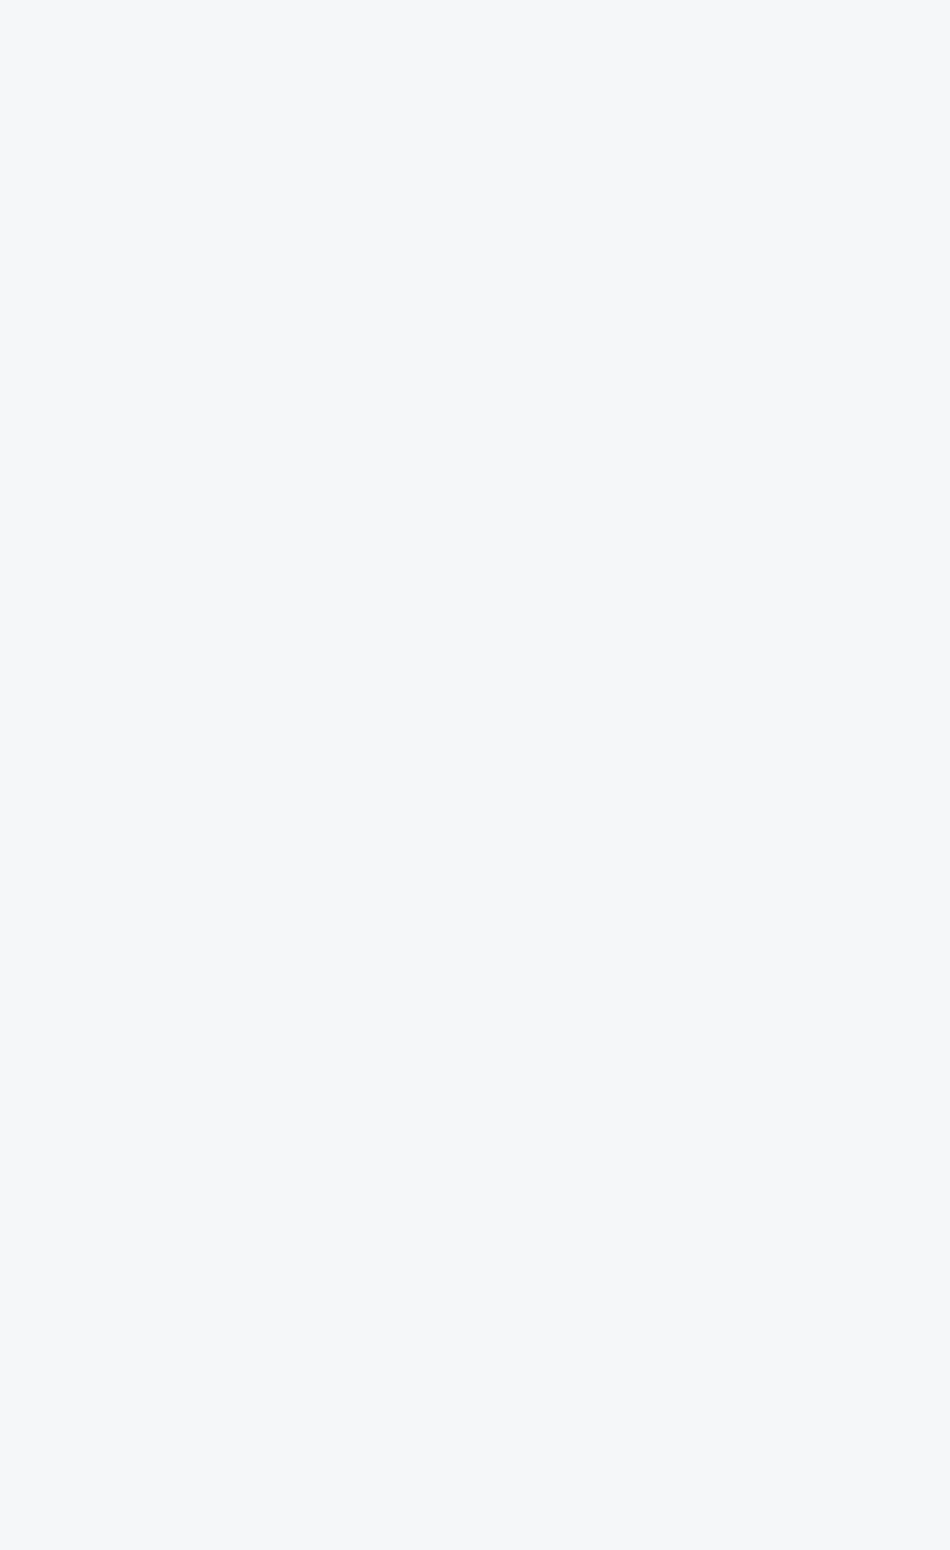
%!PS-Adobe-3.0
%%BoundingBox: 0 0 950 1550
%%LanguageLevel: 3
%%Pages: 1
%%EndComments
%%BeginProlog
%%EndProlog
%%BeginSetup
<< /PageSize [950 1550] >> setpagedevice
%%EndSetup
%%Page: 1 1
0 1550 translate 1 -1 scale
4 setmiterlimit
1 setgray
0 0 950 1550 rectfill
0.961 0.969 0.976 setrgbcolor
newpath 0 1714 moveto 0 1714 166 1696 475 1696 curveto 784 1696 950 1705 950 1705 curveto 950 0 lineto 0 0 lineto closepath fill
showpage
%%EOF
